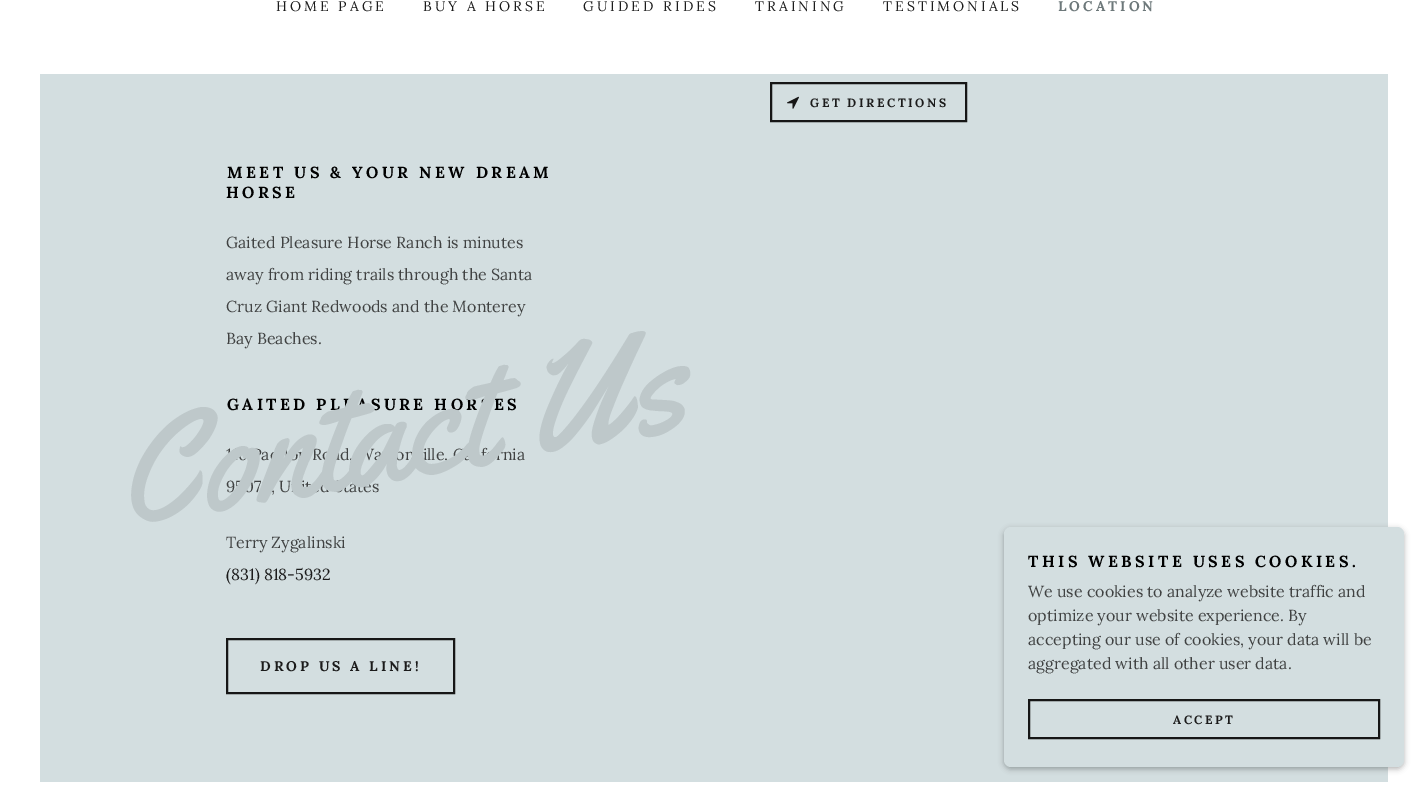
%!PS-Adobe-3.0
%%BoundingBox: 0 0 1428 791
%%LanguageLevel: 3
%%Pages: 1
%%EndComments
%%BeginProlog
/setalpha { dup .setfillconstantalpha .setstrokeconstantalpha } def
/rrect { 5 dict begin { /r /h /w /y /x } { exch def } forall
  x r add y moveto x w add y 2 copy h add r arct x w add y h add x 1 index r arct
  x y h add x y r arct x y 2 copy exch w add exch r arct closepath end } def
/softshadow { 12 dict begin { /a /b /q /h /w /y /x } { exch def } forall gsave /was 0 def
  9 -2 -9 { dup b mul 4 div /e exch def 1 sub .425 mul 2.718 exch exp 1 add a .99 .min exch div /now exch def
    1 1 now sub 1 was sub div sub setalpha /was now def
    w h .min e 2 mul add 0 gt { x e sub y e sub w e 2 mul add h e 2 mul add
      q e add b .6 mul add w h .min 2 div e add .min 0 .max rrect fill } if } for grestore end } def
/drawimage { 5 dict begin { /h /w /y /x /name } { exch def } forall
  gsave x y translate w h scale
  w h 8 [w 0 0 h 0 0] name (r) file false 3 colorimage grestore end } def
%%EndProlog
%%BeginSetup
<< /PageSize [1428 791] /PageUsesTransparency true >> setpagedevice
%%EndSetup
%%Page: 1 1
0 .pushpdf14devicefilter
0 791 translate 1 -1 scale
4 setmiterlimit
1 setgray
0 0 1428 791 rectfill
0.827 0.871 0.878 setrgbcolor
40 74 1348 708 rectfill
0.086 setgray
2 setlinewidth
771 83 195 38 rectstroke
(images/1.raw) 787 96 12 13 drawimage
227 639 227 54 rectstroke
0 setgray
1004 529 400 240 7 3 0.3 softshadow
0.827 0.871 0.878 setrgbcolor
1004 527 400 240 7 rrect fill
0.086 setgray
1029 700 350 38 rectstroke
/Lora-Regular [14 0 0 -14 0 0] selectfont
0.106 setgray
276 11 moveto 3 0 (HOME PAGE) ashow
423 11 moveto 3 0 (BUY A HORSE) ashow
583 11 moveto 3 0 (GUIDED RIDES) ashow
755 11 moveto 3 0 (TRAINING) ashow
883 11 moveto 3 0 (TESTIMONIALS) ashow
/Lora-Bold [14 0 0 -14 0 0] selectfont
0.427 0.471 0.478 setrgbcolor
1058 11 moveto 3 0 (LOCATION) ashow
/Lora-Bold [12 0 0 -12 0 0] selectfont
0.106 setgray
810 107 moveto 2.5 0 (GET DIRECTIONS) ashow
/Lora-Bold [16 0 0 -16 0 0] selectfont
0 setgray
227 178 moveto 3.4 0 (MEET US & YOUR NEW DREAM) ashow
226 198 moveto 3.4 0 (HORSE) ashow
/Lora-Regular [16 0 0 -16 0 0] selectfont
0.251 0.259 0.259 setrgbcolor
226 248 moveto (Gaited Pleasure Horse Ranch is minutes) show
226 280 moveto (away from riding trails through the Santa) show
226 312 moveto (Cruz Giant Redwoods and the Monterey) show
226 344 moveto (Bay Beaches.) show
/Lora-Bold [16 0 0 -16 0 0] selectfont
0 setgray
227 410 moveto 3.4 0 (GAITED PLEASURE HORSES) ashow
/Lora-Regular [16 0 0 -16 0 0] selectfont
0.251 0.259 0.259 setrgbcolor
226 460 moveto (110 Paddon Road, Watsonville, California) show
226 492 moveto (95076, United States) show
226 548 moveto (Terry Zygalinski) show
0.106 setgray
226 580 moveto (\(831\) 818-5932) show
/Lora-Bold [14 0 0 -14 0 0] selectfont
260 671 moveto 3 0 (DROP US A LINE!) ashow
/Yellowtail-Regular [150 0 0 -150 0 0] selectfont
0.745 0.784 0.792 setrgbcolor
gsave 124 527 translate -10 rotate 0 0 moveto (Contact Us) show grestore
/Lora-Bold [16 0 0 -16 0 0] selectfont
0 setgray
1028 567 moveto 3.4 0 (THIS WEBSITE USES COOKIES.) ashow
/Lora-Regular [16 0 0 -16 0 0] selectfont
0.251 0.259 0.259 setrgbcolor
1028 597 moveto (We use cookies to analyze website traffic and) show
1028 621 moveto (optimize your website experience. By) show
1028 645 moveto (accepting our use of cookies, your data will be) show
1028 669 moveto (aggregated with all other user data.) show
/Lora-Bold [12 0 0 -12 0 0] selectfont
0.106 setgray
1173 724 moveto 2.5 0 (ACCEPT) ashow
.poppdf14devicefilter showpage
%%EOF
